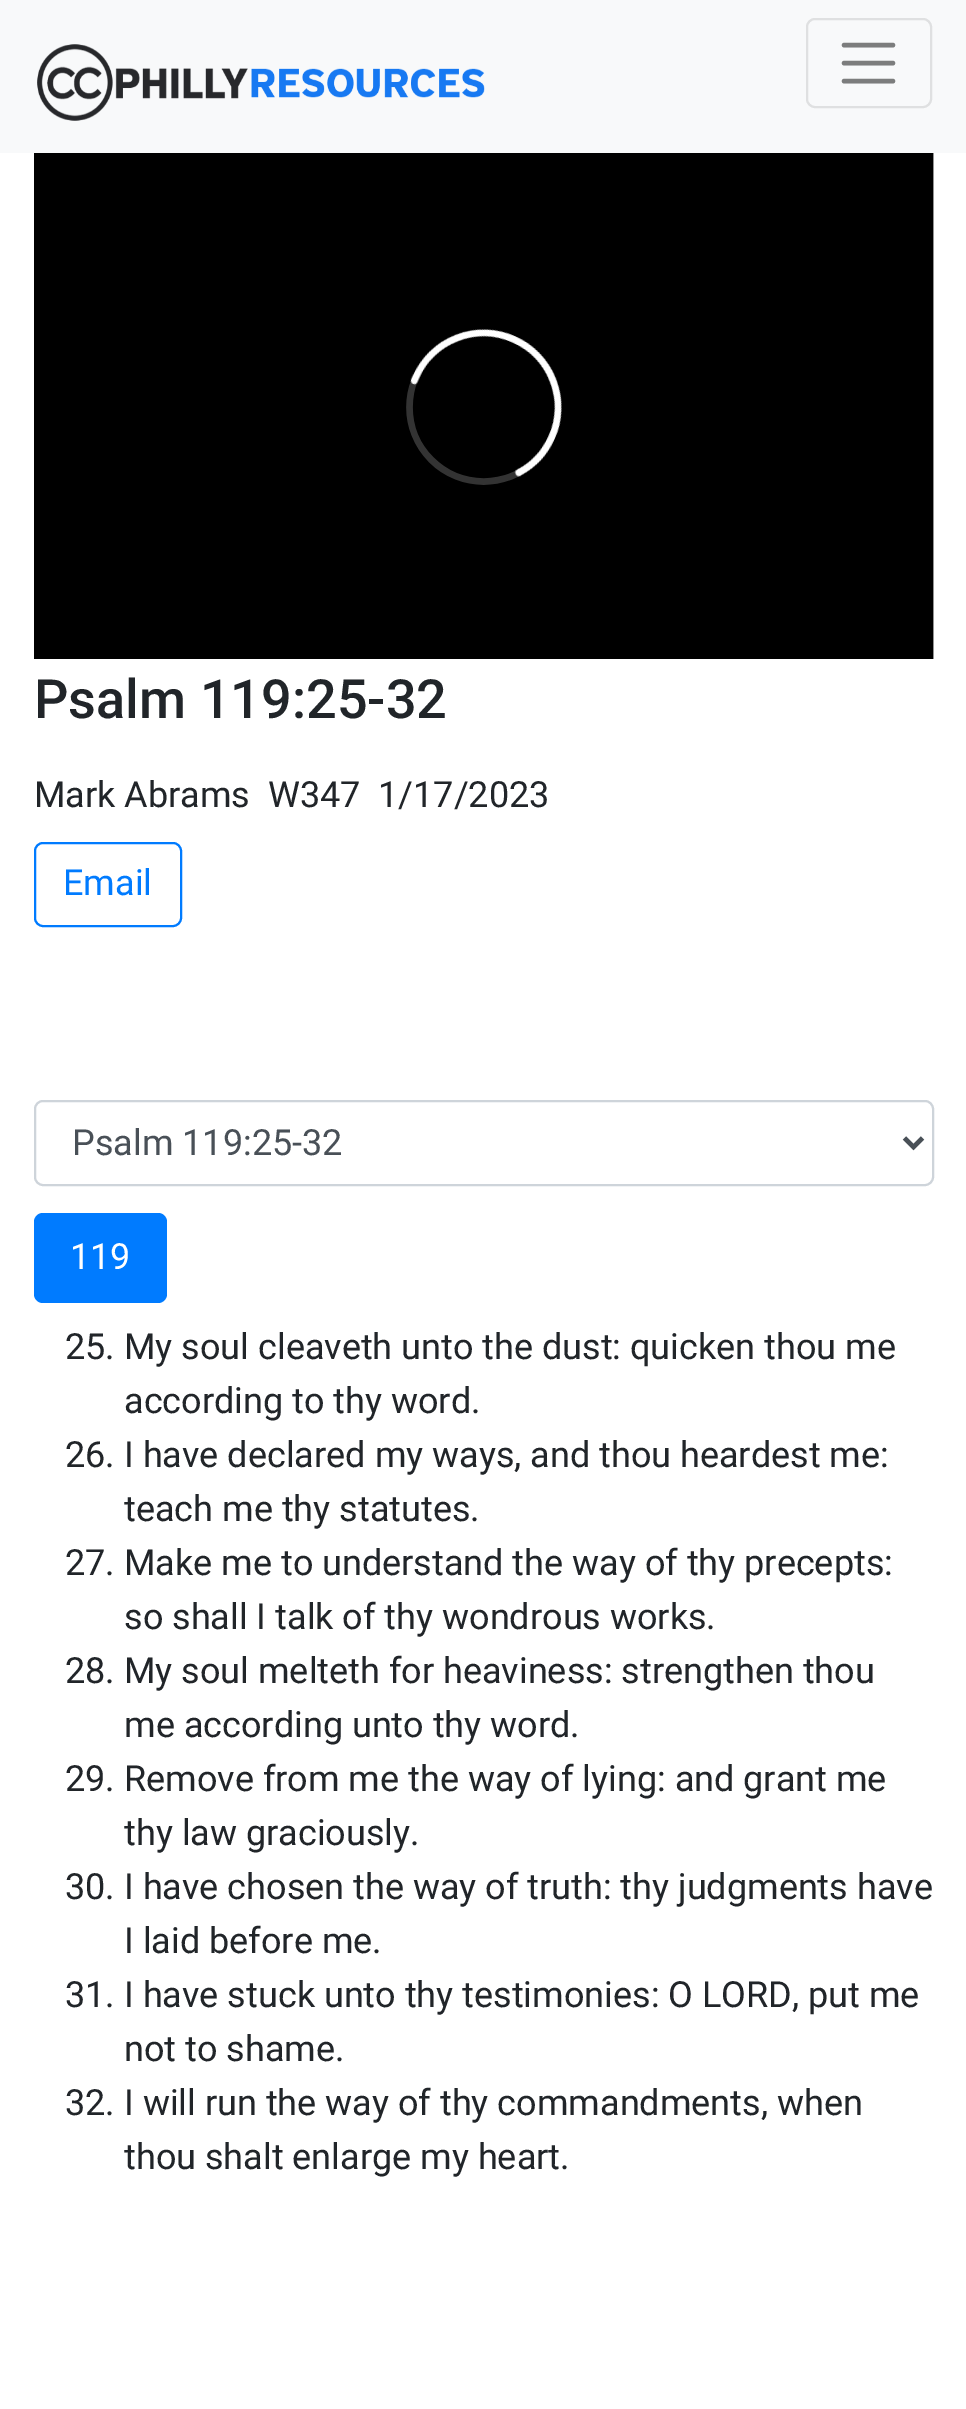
%!PS-Adobe-3.0
%%BoundingBox: 0 0 966 2409
%%LanguageLevel: 3
%%Pages: 1
%%EndComments
%%BeginProlog
/rrect { 5 dict begin { /r /h /w /y /x } { exch def } forall
  x r add y moveto x w add y 2 copy h add r arct x w add y h add x 1 index r arct
  x y h add x y r arct x y 2 copy exch w add exch r arct closepath end } def
/drawimage { 5 dict begin { /h /w /y /x /name } { exch def } forall
  gsave x y translate w h scale
  w h 8 [w 0 0 h 0 0] name (r) file false 3 colorimage grestore end } def
%%EndProlog
%%BeginSetup
<< /PageSize [966 2409] >> setpagedevice
%%EndSetup
%%Page: 1 1
0 2409 translate 1 -1 scale
4 setmiterlimit
1 setgray
0 0 966 2409 rectfill
0.973 0.976 0.98 setrgbcolor
0 0 966 153 rectfill
(images/1.raw) 37 44 448 77 drawimage
0.875 0.878 0.882 setrgbcolor
2 setlinewidth
807 19 124 88 8 rrect stroke
0.486 0.49 0.49 setrgbcolor
4.5 setlinewidth
1 setlinecap
newpath 844 45 moveto 893 45 lineto 844 63 moveto 893 63 lineto 844 81 moveto 893 81 lineto stroke
(images/2.raw) 34 153 900 506 drawimage
0 0.482 1 setrgbcolor
2 setlinewidth
0 setlinecap
35 843 146 83 8 rrect stroke
0.808 0.831 0.855 setrgbcolor
35 1101 898 84 8 rrect stroke
0.286 0.314 0.341 setrgbcolor
4.5 setlinewidth
newpath 904.5 1138 moveto 913.5 1147 lineto 922.5 1138 lineto stroke
0 0.482 1 setrgbcolor
34 1213 133 90 9 rrect fill
/Roboto-Medium [54 0 0 -54 0 0] selectfont
0.129 0.145 0.161 setrgbcolor
34 718 moveto (Psalm 119:25-32) show
/Roboto-Regular [36 0 0 -36 0 0] selectfont
34 807 moveto (Mark Abrams) show
268 807 moveto (W347) show
378 807 moveto (1/17/2023) show
0 0.482 1 setrgbcolor
63 895 moveto (Email) show
0.286 0.314 0.341 setrgbcolor
72 1155 moveto (Psalm 119:25-32) show
1 setgray
70 1269 moveto (119) show
0.129 0.145 0.161 setrgbcolor
65 1359 moveto (25. My soul cleaveth unto the dust: quicken thou me) show
124 1413 moveto (according to thy word.) show
65 1467 moveto (26. I have declared my ways, and thou heardest me:) show
124 1521 moveto (teach me thy statutes.) show
65 1575 moveto (27. Make me to understand the way of thy precepts:) show
124 1629 moveto (so shall I talk of thy wondrous works.) show
65 1683 moveto (28. My soul melteth for heaviness: strengthen thou) show
124 1737 moveto (me according unto thy word.) show
65 1791 moveto (29. Remove from me the way of lying: and grant me) show
124 1845 moveto (thy law graciously.) show
65 1899 moveto (30. I have chosen the way of truth: thy judgments have) show
124 1953 moveto (I laid before me.) show
65 2007 moveto (31. I have stuck unto thy testimonies: O LORD, put me) show
124 2061 moveto (not to shame.) show
65 2115 moveto (32. I will run the way of thy commandments, when) show
124 2169 moveto (thou shalt enlarge my heart.) show
showpage
%%EOF
